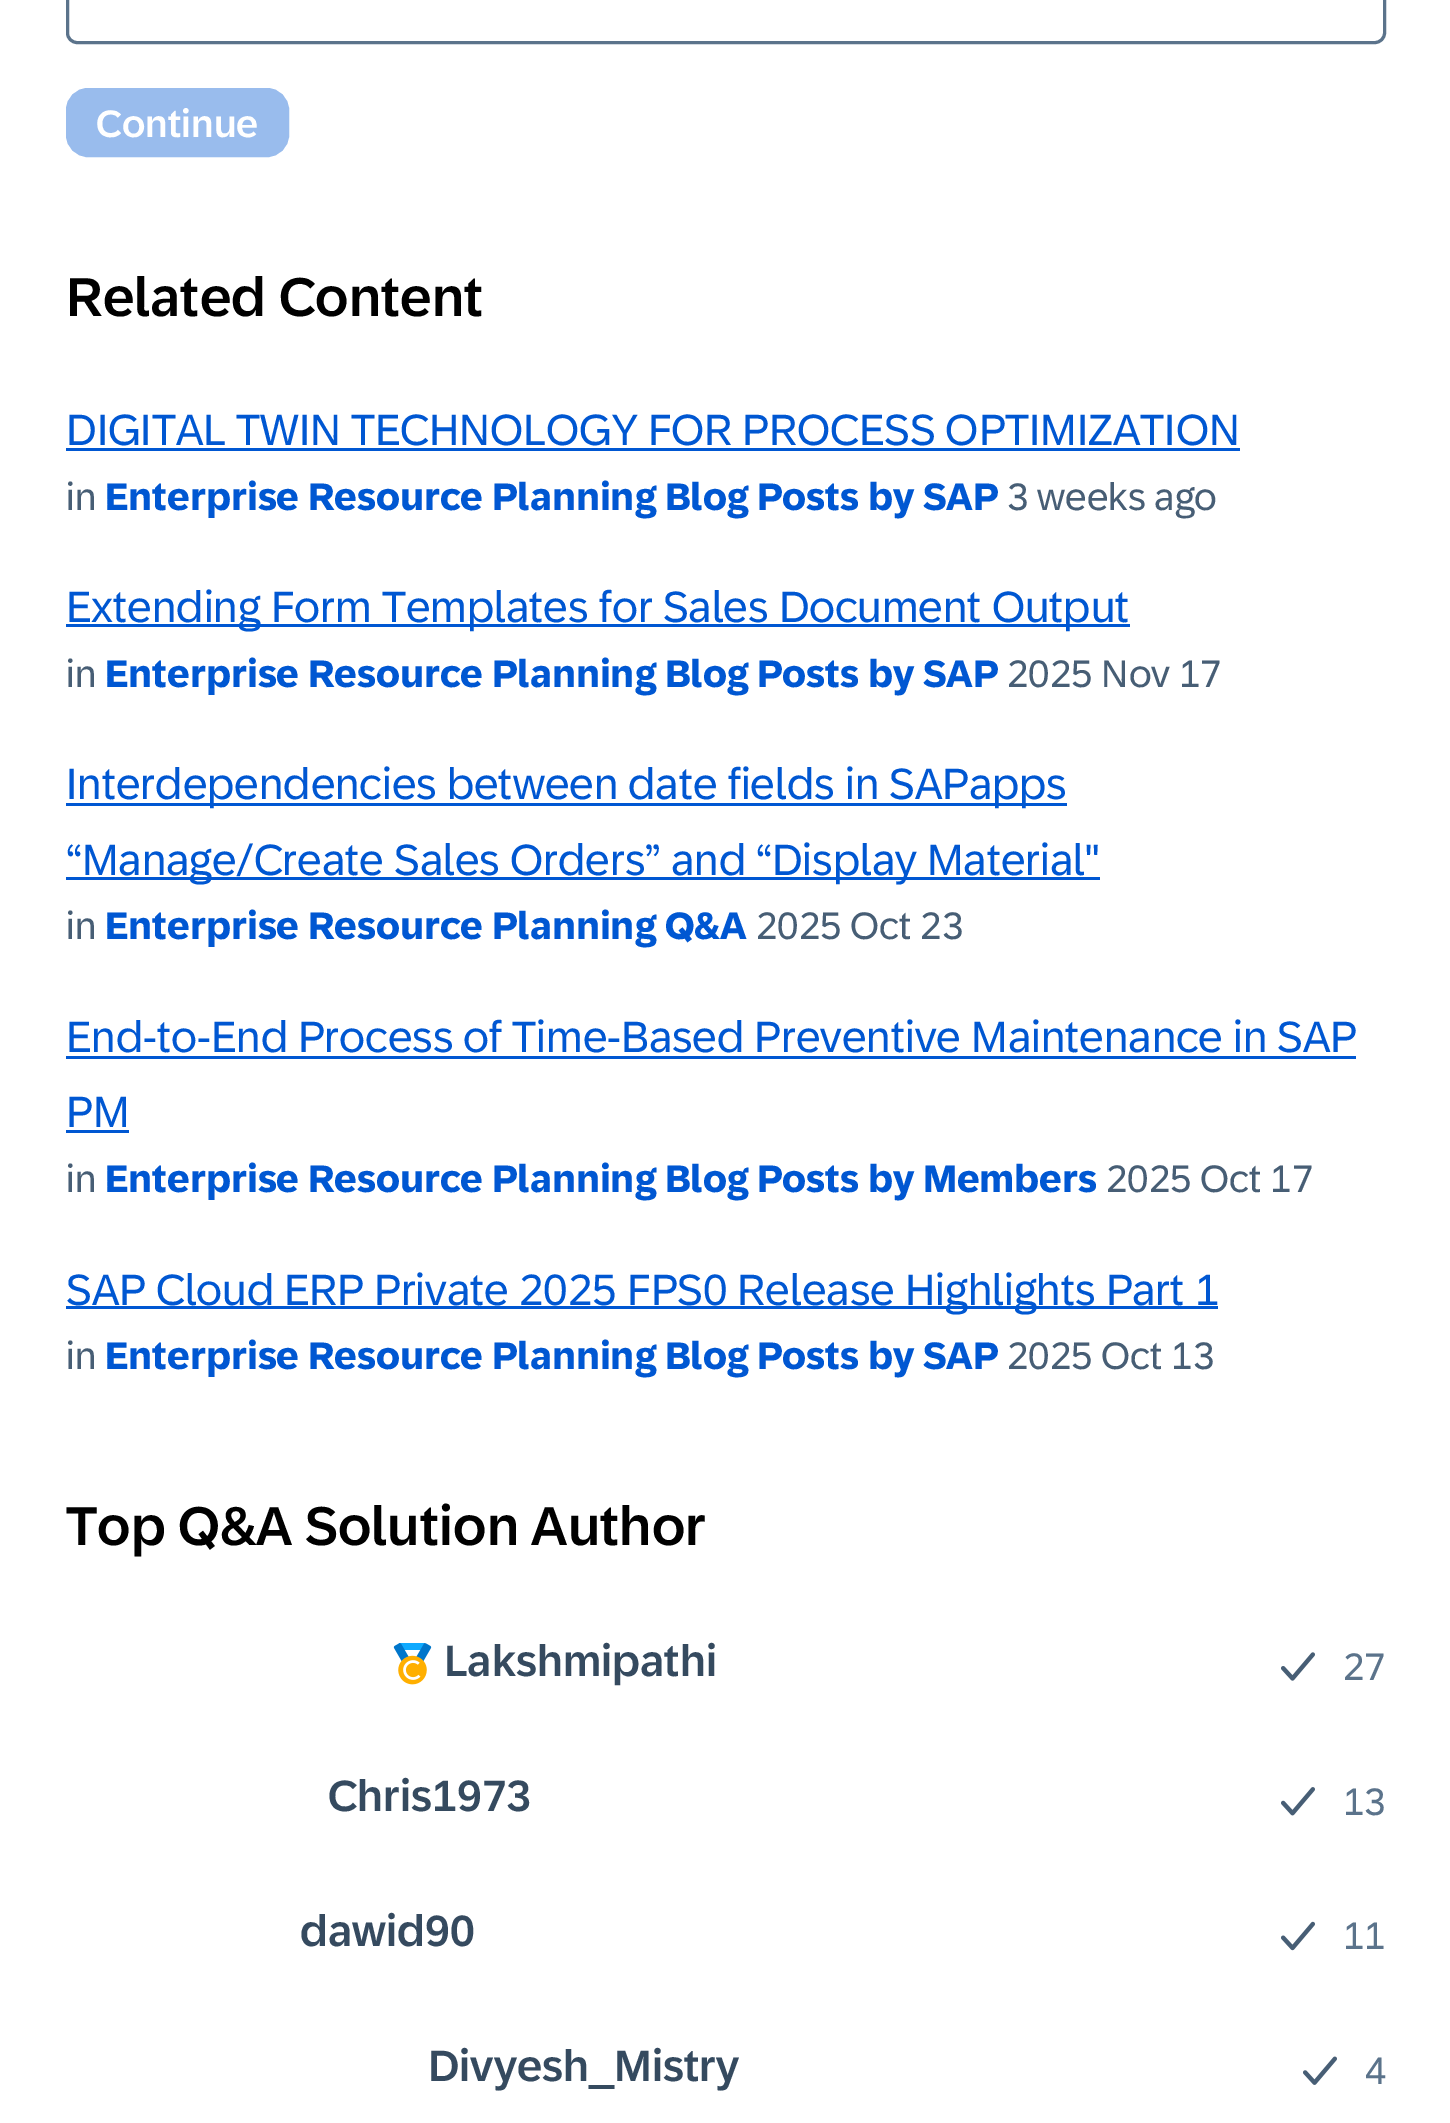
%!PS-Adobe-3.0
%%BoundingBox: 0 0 1450 2123
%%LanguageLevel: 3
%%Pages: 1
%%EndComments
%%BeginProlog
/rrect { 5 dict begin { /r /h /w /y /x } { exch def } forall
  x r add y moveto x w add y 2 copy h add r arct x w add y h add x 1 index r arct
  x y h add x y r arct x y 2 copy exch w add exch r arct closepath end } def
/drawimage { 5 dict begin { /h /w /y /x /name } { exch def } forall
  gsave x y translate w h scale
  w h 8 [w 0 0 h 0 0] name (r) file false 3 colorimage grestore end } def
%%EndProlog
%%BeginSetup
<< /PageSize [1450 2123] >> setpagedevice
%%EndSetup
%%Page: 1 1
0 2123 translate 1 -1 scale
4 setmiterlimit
1 setgray
0 0 1450 2123 rectfill
0.357 0.451 0.545 setrgbcolor
3 setlinewidth
67.5 -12.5 1317 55 9.5 rrect stroke
0.6 0.737 0.929 setrgbcolor
67.5 89.5 220 66 20.5 rrect gsave fill grestore
stroke
0 0.341 0.824 setrgbcolor
66 448 1174 3 rectfill
66 624 1064 3 rectfill
66 803 1001 3 rectfill
66 877 1034 3 rectfill
66 1056 1290 3 rectfill
66 1130 63 3 rectfill
66 1306 1152 3 rectfill
(images/1.raw) 393 1643 39 42 drawimage
(images/2.raw) 1281 1652 34 29 drawimage
(images/3.raw) 1281 1787 34 29 drawimage
(images/4.raw) 1281 1921 34 30 drawimage
(images/5.raw) 1303 2056 34 29 drawimage
/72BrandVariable-Medium [38.5 0 0 -38.5 0 0] selectfont
1 setgray
96 137 moveto (Continue) show
/72BrandVariable-Medium [55 0 0 -55 0 0] selectfont
0 setgray
66 316 moveto (Related Content) show
/72BrandVariable-Regular [44 0 0 -44 0 0] selectfont
0 0.341 0.824 setrgbcolor
66 445 moveto (DIGITAL TWIN TECHNOLOGY FOR PROCESS OPTIMIZATION) show
/72BrandVariable-Regular [38.5 0 0 -38.5 0 0] selectfont
0.278 0.369 0.459 setrgbcolor
66 510 moveto (in) show
/72BrandVariable-Bold [38.5 0 0 -38.5 0 0] selectfont
0 0.341 0.824 setrgbcolor
105 510 moveto (Enterprise Resource Planning Blog Posts by SAP) show
/72BrandVariable-Regular [38.5 0 0 -38.5 0 0] selectfont
0.278 0.369 0.459 setrgbcolor
1007 510 moveto (3 weeks ago) show
/72BrandVariable-Regular [44 0 0 -44 0 0] selectfont
0 0.341 0.824 setrgbcolor
66 622 moveto (Extending Form Templates for Sales Document Output) show
/72BrandVariable-Regular [38.5 0 0 -38.5 0 0] selectfont
0.278 0.369 0.459 setrgbcolor
66 687 moveto (in) show
/72BrandVariable-Bold [38.5 0 0 -38.5 0 0] selectfont
0 0.341 0.824 setrgbcolor
105 687 moveto (Enterprise Resource Planning Blog Posts by SAP) show
/72BrandVariable-Regular [38.5 0 0 -38.5 0 0] selectfont
0.278 0.369 0.459 setrgbcolor
1007 687 moveto (2025 Nov 17) show
/72BrandVariable-Regular [44 0 0 -44 0 0] selectfont
0 0.341 0.824 setrgbcolor
66 799 moveto (Interdependencies between date fields in SAPapps) show
66 875 moveto (“Manage/Create Sales Orders” and “Display Material") show
/72BrandVariable-Regular [38.5 0 0 -38.5 0 0] selectfont
0.278 0.369 0.459 setrgbcolor
66 939 moveto (in) show
/72BrandVariable-Bold [38.5 0 0 -38.5 0 0] selectfont
0 0.341 0.824 setrgbcolor
105 939 moveto (Enterprise Resource Planning Q&A) show
/72BrandVariable-Regular [38.5 0 0 -38.5 0 0] selectfont
0.278 0.369 0.459 setrgbcolor
756 939 moveto (2025 Oct 23) show
/72BrandVariable-Regular [44 0 0 -44 0 0] selectfont
0 0.341 0.824 setrgbcolor
66 1052 moveto (End-to-End Process of Time-Based Preventive Maintenance in SAP) show
66 1127 moveto (PM) show
/72BrandVariable-Regular [38.5 0 0 -38.5 0 0] selectfont
0.278 0.369 0.459 setrgbcolor
66 1192 moveto (in) show
/72BrandVariable-Bold [38.5 0 0 -38.5 0 0] selectfont
0 0.341 0.824 setrgbcolor
105 1192 moveto (Enterprise Resource Planning Blog Posts by Members) show
/72BrandVariable-Regular [38.5 0 0 -38.5 0 0] selectfont
0.278 0.369 0.459 setrgbcolor
1106 1192 moveto (2025 Oct 17) show
/72BrandVariable-Regular [44 0 0 -44 0 0] selectfont
0 0.341 0.824 setrgbcolor
66 1305 moveto (SAP Cloud ERP Private 2025 FPS0 Release Highlights Part 1) show
/72BrandVariable-Regular [38.5 0 0 -38.5 0 0] selectfont
0.278 0.369 0.459 setrgbcolor
66 1369 moveto (in) show
/72BrandVariable-Bold [38.5 0 0 -38.5 0 0] selectfont
0 0.341 0.824 setrgbcolor
105 1369 moveto (Enterprise Resource Planning Blog Posts by SAP) show
/72BrandVariable-Regular [38.5 0 0 -38.5 0 0] selectfont
0.278 0.369 0.459 setrgbcolor
1007 1369 moveto (2025 Oct 13) show
/72BrandVariable-Medium [55 0 0 -55 0 0] selectfont
0 setgray
66 1545 moveto (Top Q&A Solution Author) show
/72BrandVariable-Medium [44 0 0 -44 0 0] selectfont
0.208 0.29 0.373 setrgbcolor
444 1676 moveto (Lakshmipathi) show
/72BrandVariable-Regular [38.5 0 0 -38.5 0 0] selectfont
0.357 0.451 0.545 setrgbcolor
1343 1680 moveto (27) show
/72BrandVariable-Medium [44 0 0 -44 0 0] selectfont
0.208 0.29 0.373 setrgbcolor
328 1811 moveto (Chris1973) show
/72BrandVariable-Regular [38.5 0 0 -38.5 0 0] selectfont
0.357 0.451 0.545 setrgbcolor
1343 1815 moveto (13) show
/72BrandVariable-Medium [44 0 0 -44 0 0] selectfont
0.208 0.29 0.373 setrgbcolor
300 1946 moveto (dawid90) show
/72BrandVariable-Regular [38.5 0 0 -38.5 0 0] selectfont
0.357 0.451 0.545 setrgbcolor
1343 1949 moveto (11) show
/72BrandVariable-Medium [44 0 0 -44 0 0] selectfont
0.208 0.29 0.373 setrgbcolor
428 2081 moveto (Divyesh_Mistry) show
/72BrandVariable-Regular [38.5 0 0 -38.5 0 0] selectfont
0.357 0.451 0.545 setrgbcolor
1365 2084 moveto (4) show
showpage
%%EOF
